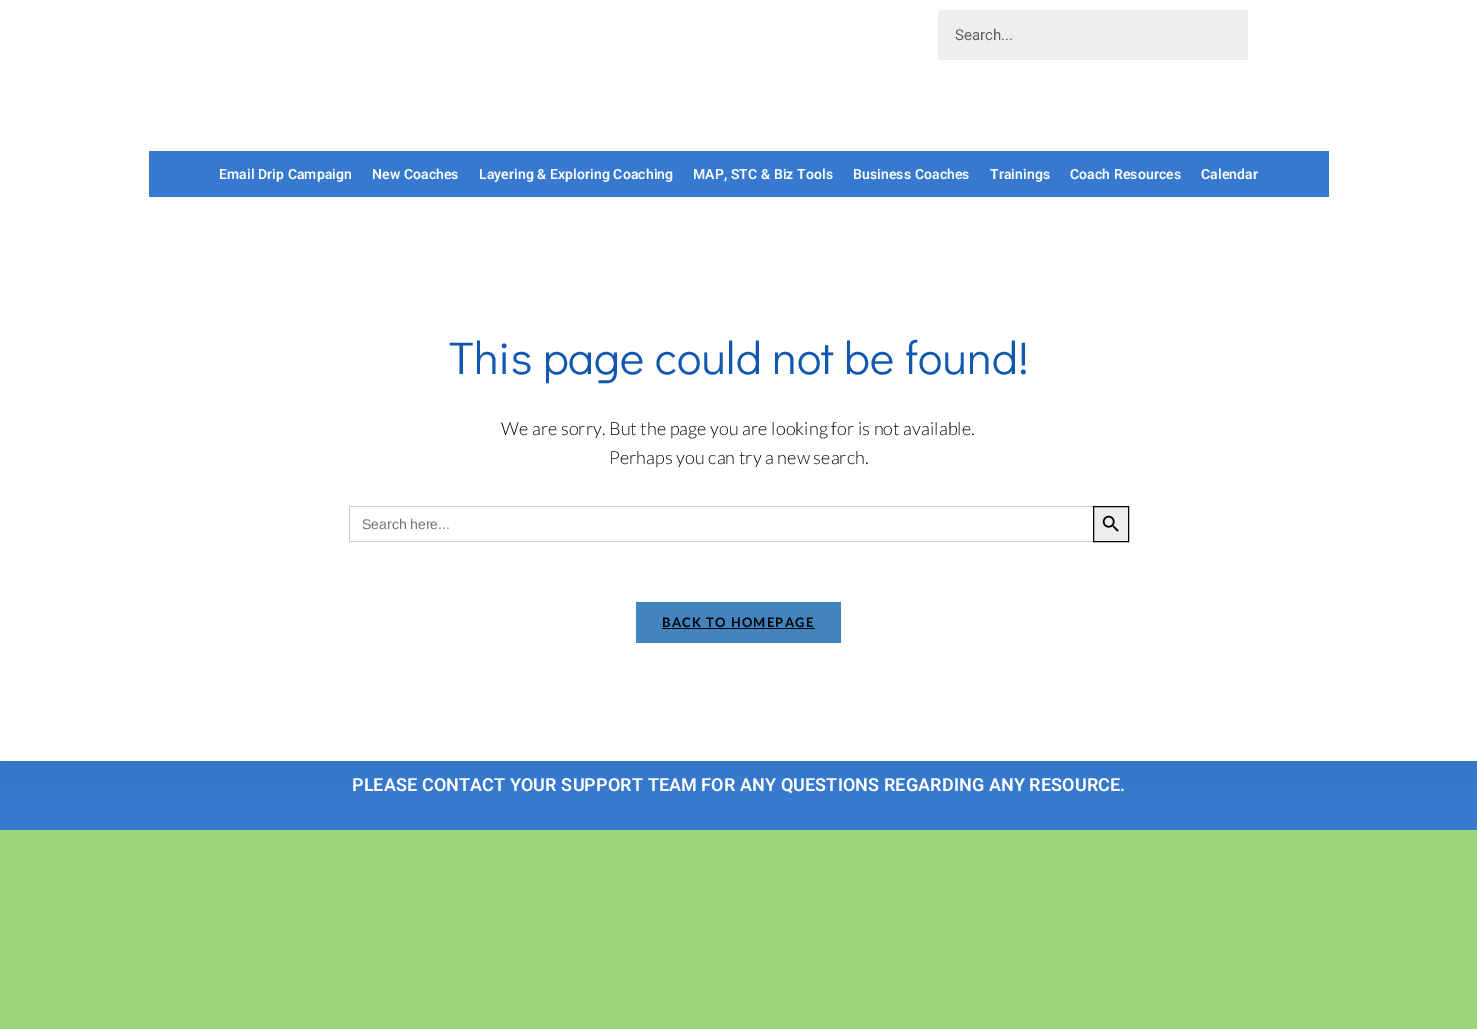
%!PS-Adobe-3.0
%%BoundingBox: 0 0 1477 1029
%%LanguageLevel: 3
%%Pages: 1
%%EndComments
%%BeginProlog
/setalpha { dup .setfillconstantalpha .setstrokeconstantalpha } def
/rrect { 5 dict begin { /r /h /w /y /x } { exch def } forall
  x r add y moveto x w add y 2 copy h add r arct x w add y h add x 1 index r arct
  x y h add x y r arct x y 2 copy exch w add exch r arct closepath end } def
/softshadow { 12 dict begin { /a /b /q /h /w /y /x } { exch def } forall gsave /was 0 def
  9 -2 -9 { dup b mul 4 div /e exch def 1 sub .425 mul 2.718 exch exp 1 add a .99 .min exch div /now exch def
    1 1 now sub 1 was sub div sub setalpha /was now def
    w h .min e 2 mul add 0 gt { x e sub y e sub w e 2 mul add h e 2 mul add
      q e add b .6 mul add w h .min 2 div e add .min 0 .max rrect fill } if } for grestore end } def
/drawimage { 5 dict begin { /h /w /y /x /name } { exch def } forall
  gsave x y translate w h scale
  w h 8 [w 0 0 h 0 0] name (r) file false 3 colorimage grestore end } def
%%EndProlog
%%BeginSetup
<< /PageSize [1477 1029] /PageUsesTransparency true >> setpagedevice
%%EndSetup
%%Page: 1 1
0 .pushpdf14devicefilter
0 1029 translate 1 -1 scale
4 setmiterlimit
0.6 0.839 0.459 setrgbcolor
0 0 1477 1029 rectfill
0.212 0.475 0.812 setrgbcolor
0 761 1477 69 rectfill
0 setgray
0 207 1477 554 0 20 0.1 softshadow
1 setgray
0 0 1477 761 rectfill
0.925 0.933 0.937 setrgbcolor
938 10 360 50 3 rrect fill
1 setgray
newpath 1248 10 moveto 1295 10 lineto 1296.5 10 1298 11.5 1298 13 curveto 1298 57 lineto 1298 58.5 1296.5 60 1295 60 curveto 1248 60 lineto closepath fill
0.212 0.475 0.812 setrgbcolor
149 151 1180 46 rectfill
0.8 setgray
349 506 744 1 rectfill
349 541 744 1 rectfill
349 506 1 36 rectfill
0.929 setgray
newpath 1093.5 506.5 moveto 1128.5 506.5 lineto 1128.5 541.5 lineto 1093.5 541.5 lineto closepath gsave fill grestore
0 setgray
stroke
(images/1.raw) 1102 515 17 17 drawimage
0.255 0.518 0.749 setrgbcolor
636 602 205 41 rectfill
0 setgray
662 628 153 1 rectfill
/Roboto-Regular [15 0 0 -15 0 0] selectfont
0.369 0.373 0.376 setrgbcolor
955 40 moveto (Search...) show
/Roboto-SemiBold [14 0 0 -14 0 0] selectfont
1 setgray
219 179 moveto 0.1 0 (Email Drip Campaign) ashow
372 179 moveto 0.1 0 (New Coaches) ashow
479 179 moveto 0.1 0 (Layering & Exploring Coaching) ashow
693 179 moveto 0.1 0 (MAP, STC & Biz Tools) ashow
853 179 moveto 0.1 0 (Business Coaches) ashow
990 179 moveto 0.1 0 (Trainings) ashow
1070 179 moveto 0.1 0 (Coach Resources) ashow
1201 179 moveto 0.1 0 (Calendar) ashow
/DidactGothic-Regular [46 0 0 -46 0 0] selectfont
0.071 0.341 0.69 setrgbcolor
449 374 moveto 0.1 0 (This page could not be found!) ashow
/Lato-Light [18 0 0 -18 0 0] selectfont
0 setgray
501 435 moveto 0.1 0 (We are sorry. But the page you are looking for is not available.) ashow
609 464 moveto 0.1 0 (Perhaps you can try a new search.) ashow
/LiberationSans-Regular [14 0 0 -14 0 0] selectfont
0.459 setgray
362 529 moveto (Search here...) show
/Lato-Bold [13 0 0 -13 0 0] selectfont
0 setgray
662 627 moveto 1.25 0 (BACK TO HOMEPAGE) ashow
/Roboto-SemiBold [18 0 0 -18 0 0] selectfont
1 setgray
352 791 moveto 0.1 0 (PLEASE CONTACT YOUR SUPPORT TEAM FOR ANY QUESTIONS REGARDING ANY RESOURCE.) ashow
.poppdf14devicefilter showpage
%%EOF
